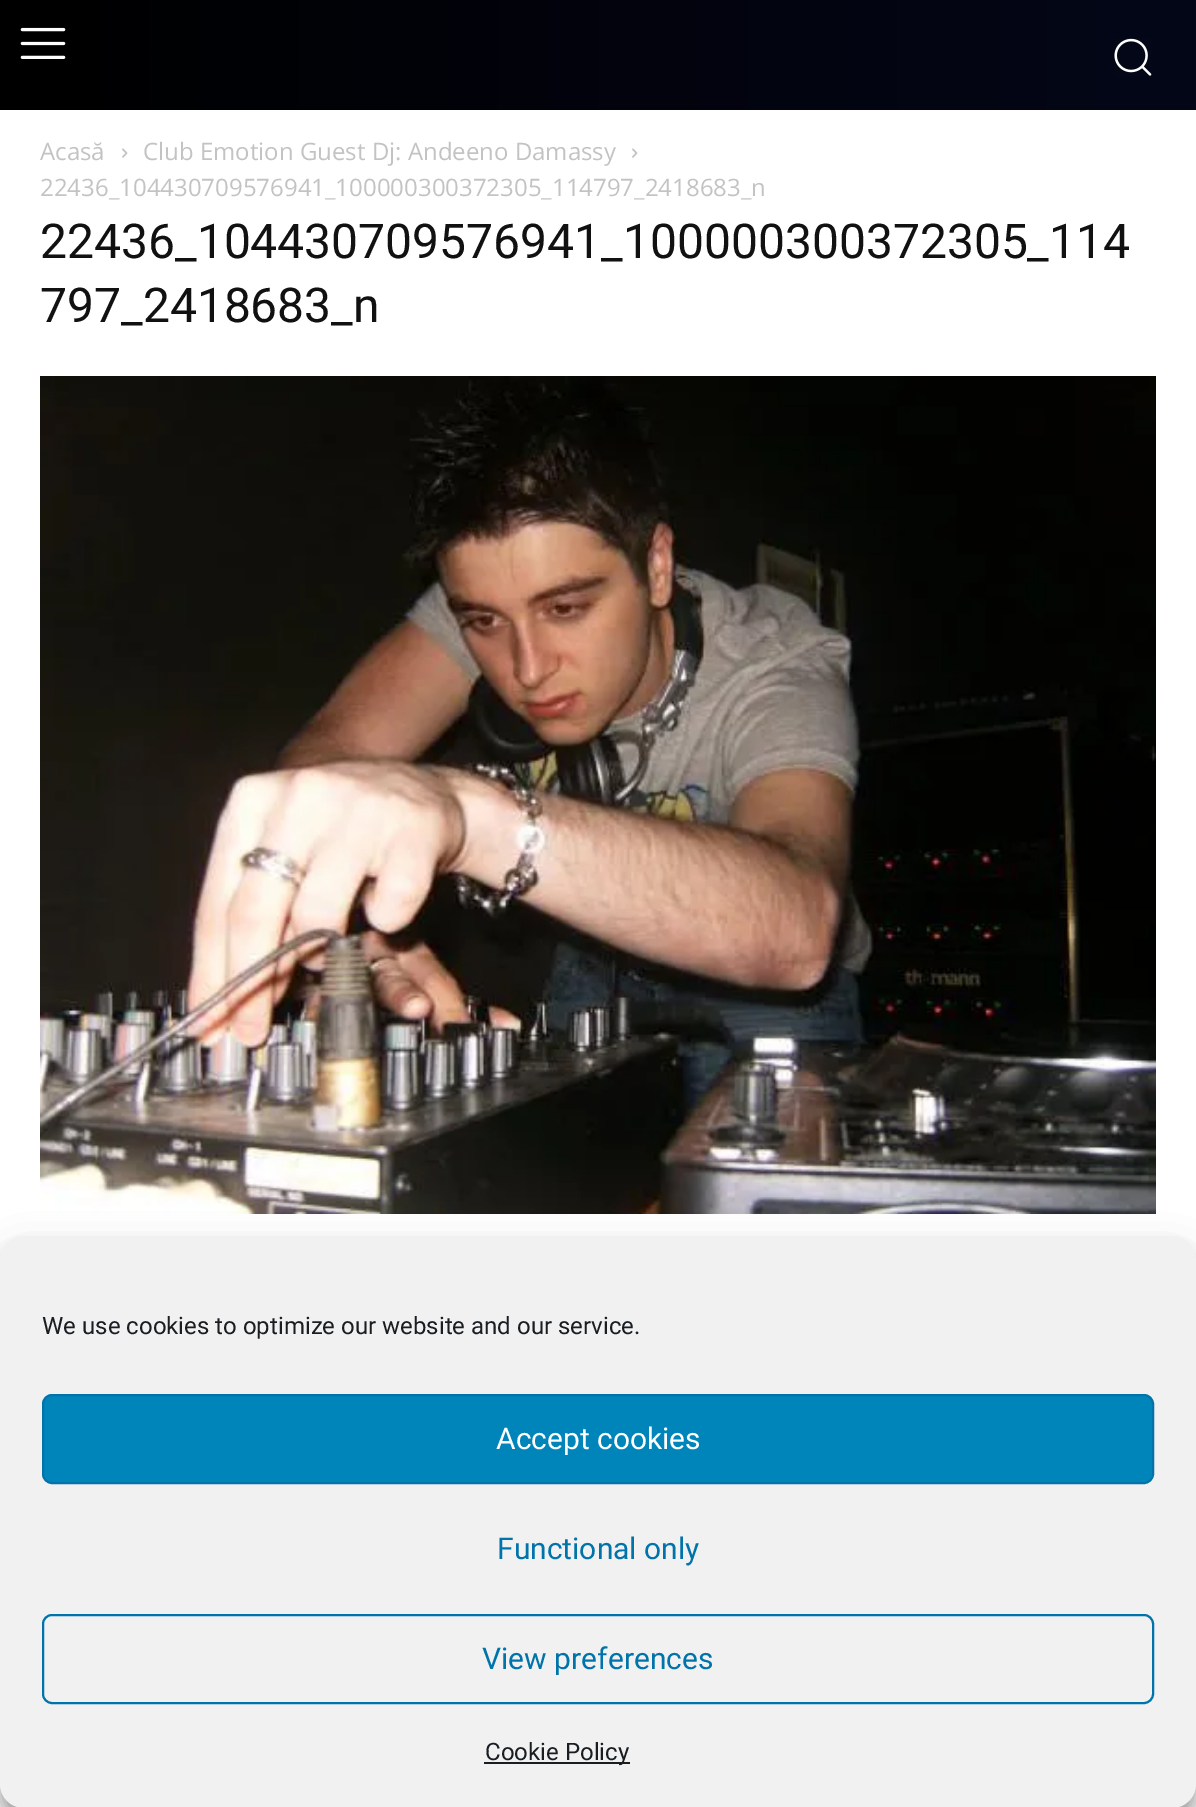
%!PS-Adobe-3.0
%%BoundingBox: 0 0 1196 1807
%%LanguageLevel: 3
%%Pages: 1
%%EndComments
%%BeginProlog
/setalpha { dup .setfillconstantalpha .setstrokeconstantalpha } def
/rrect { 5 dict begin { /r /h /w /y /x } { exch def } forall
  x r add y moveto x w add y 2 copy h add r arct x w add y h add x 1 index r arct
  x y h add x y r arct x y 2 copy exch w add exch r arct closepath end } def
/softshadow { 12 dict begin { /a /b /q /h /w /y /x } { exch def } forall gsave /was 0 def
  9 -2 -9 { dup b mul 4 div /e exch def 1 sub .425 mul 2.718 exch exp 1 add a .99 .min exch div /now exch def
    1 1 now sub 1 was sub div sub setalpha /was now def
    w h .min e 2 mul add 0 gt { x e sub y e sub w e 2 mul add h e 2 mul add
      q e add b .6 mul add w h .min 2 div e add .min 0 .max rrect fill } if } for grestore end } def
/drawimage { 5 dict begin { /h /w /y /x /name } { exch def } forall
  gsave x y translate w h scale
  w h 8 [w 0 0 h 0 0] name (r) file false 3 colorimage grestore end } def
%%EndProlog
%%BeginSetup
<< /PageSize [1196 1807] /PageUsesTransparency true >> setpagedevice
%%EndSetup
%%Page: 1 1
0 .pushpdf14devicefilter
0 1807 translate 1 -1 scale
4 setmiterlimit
1 setgray
0 0 1196 1807 rectfill
gsave newpath 0 0 moveto 1196 0 lineto 1196 110 lineto 0 110 lineto closepath clip newpath
<< /ShadingType 2 /ColorSpace /DeviceRGB /Coords [0 55 1196 55] /Extend [true true] /Function << /FunctionType 2 /Domain [0 1] /C0 [0 0 0] /C1 [0.016 0.027 0.094] /N 1 >> >> shfill grestore
(images/1.raw) 20 27 46 32 drawimage
(images/2.raw) 1114 38 38 38 drawimage
(images/3.raw) 122 148 6 10 drawimage
(images/3.raw) 632 148 6 10 drawimage
(images/4.raw) 40 376 1116 838 drawimage
0 setgray
0 1248 1196 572 24 6 0.23 softshadow
0 1256 1196 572 24 20 0.19 softshadow
0.945 setgray
1 1237 1194 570 23 rrect gsave fill grestore
2 setlinewidth
stroke
0 0.522 0.729 setrgbcolor
43 1395 1110 88 9 rrect gsave fill grestore
0 0.451 0.667 setrgbcolor
stroke
43 1615 1110 88 9 rrect stroke
0.098 0.118 0.137 setrgbcolor
484 1762 146 2 rectfill
/OpenSans-Regular [24 0 0 -24 0 0] selectfont
0.765 setgray
40 160 moveto (Acasă) show
143 160 moveto (Club Emotion Guest Dj: Andeeno Damassy) show
40 196 moveto (22436_104430709576941_100000300372305_114797_2418683_n) show
/Roboto-Regular [48 0 0 -48 0 0] selectfont
0.067 setgray
40 258 moveto (22436_104430709576941_100000300372305_114) show
40 322 moveto (797_2418683_n) show
/Roboto-Regular [24 0 0 -24 0 0] selectfont
0.098 0.118 0.137 setrgbcolor
42 1334 moveto (We use cookies to optimize our website and our service.) show
/Roboto-Regular [30 0 0 -30 0 0] selectfont
1 setgray
496 1449 moveto (Accept cookies) show
0 0.451 0.667 setrgbcolor
497 1559 moveto (Functional only) show
482 1669 moveto (View preferences) show
/Roboto-Regular [24 0 0 -24 0 0] selectfont
0.098 0.118 0.137 setrgbcolor
485 1760 moveto (Cookie Policy) show
.poppdf14devicefilter showpage
%%EOF
